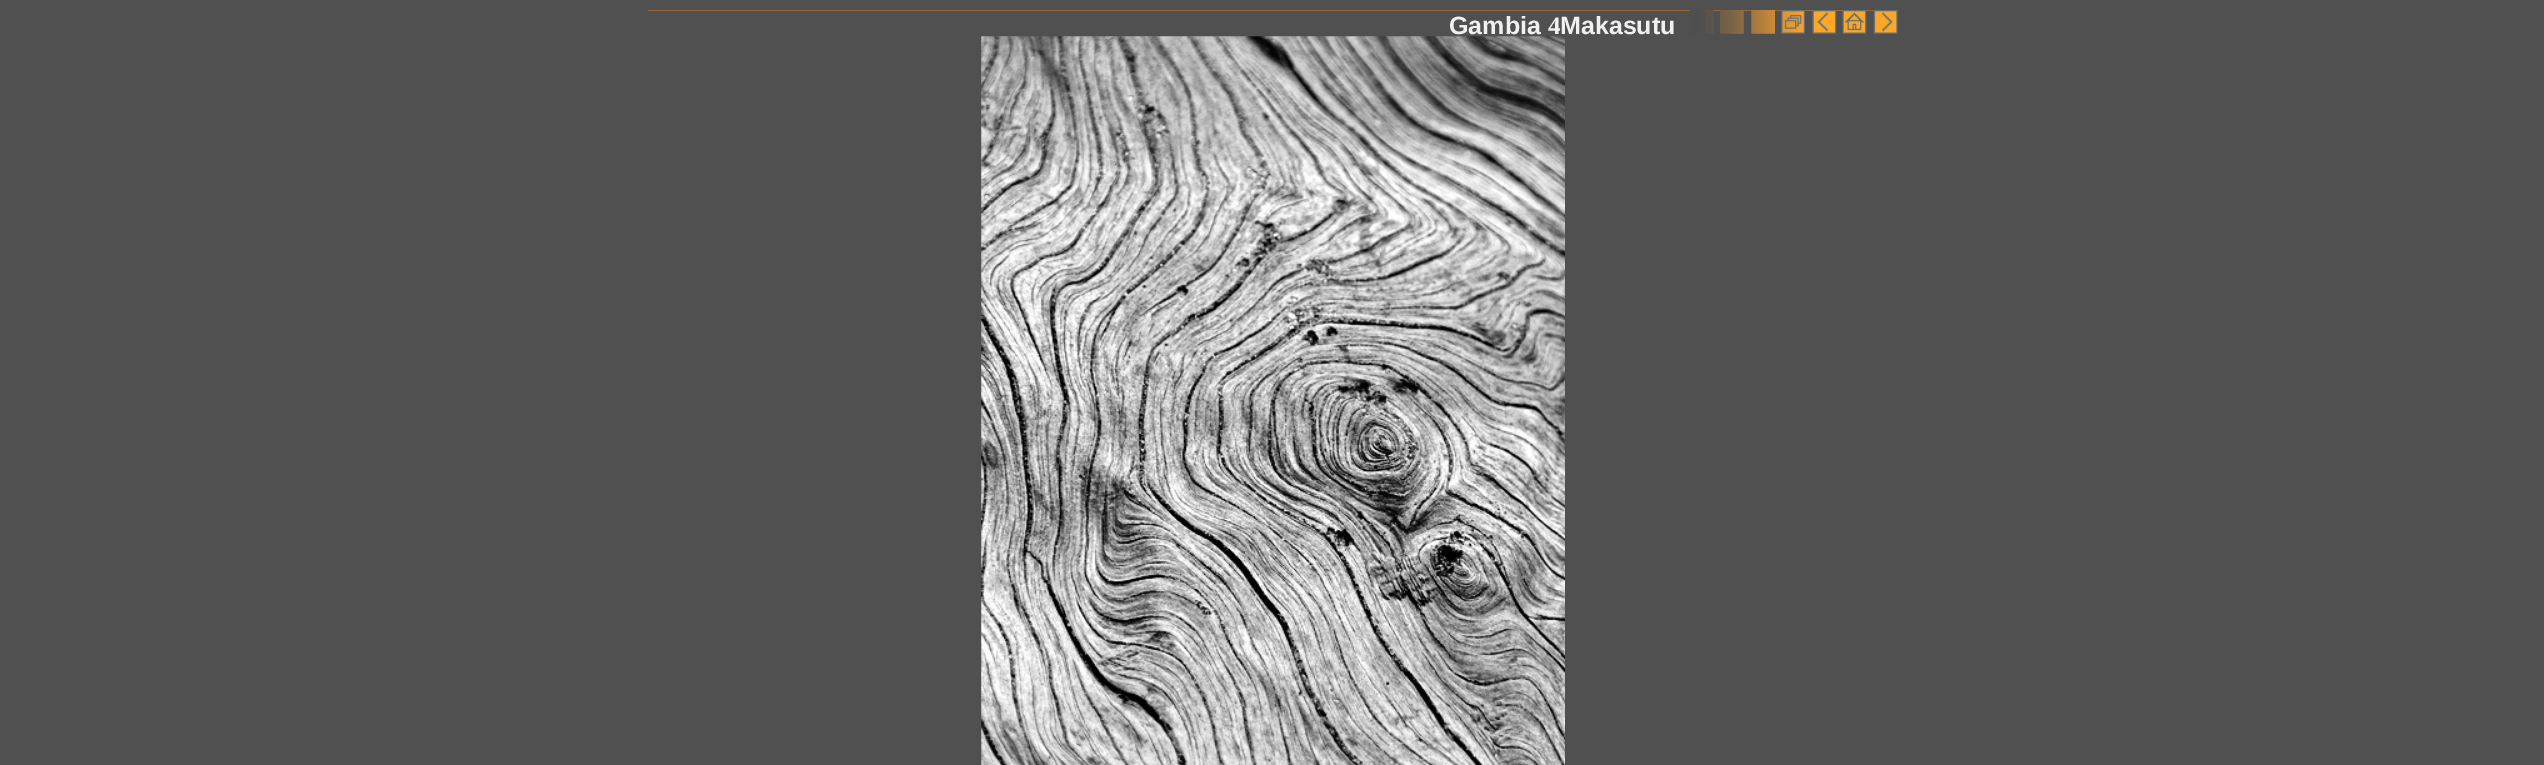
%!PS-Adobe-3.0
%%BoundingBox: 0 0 2544 765
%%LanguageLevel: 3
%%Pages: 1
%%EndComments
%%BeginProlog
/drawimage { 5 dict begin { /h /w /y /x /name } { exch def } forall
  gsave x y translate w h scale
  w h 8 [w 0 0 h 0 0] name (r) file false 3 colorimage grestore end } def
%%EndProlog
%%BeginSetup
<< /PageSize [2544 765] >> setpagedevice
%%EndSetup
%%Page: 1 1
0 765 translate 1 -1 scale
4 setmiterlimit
0.314 setgray
0 0 2544 765 rectfill
0.604 0.4 0.204 setrgbcolor
648 10 1250 1 rectfill
(images/1.raw) 1690 10 24 24 drawimage
(images/2.raw) 1720 10 24 24 drawimage
(images/3.raw) 1751 10 24 24 drawimage
(images/4.raw) 1781 10 24 24 drawimage
(images/5.raw) 1812 10 25 24 drawimage
(images/6.raw) 1842 10 25 24 drawimage
(images/7.raw) 1873 10 25 24 drawimage
(images/8.raw) 981 36 584 729 drawimage
/LiberationSans-Bold [25 0 0 -25 0 0] selectfont
0.941 setgray
1449 34 moveto (Gambia) show
/LiberationSerif-Bold [25 0 0 -25 0 0] selectfont
1548 34 moveto (4) show
/LiberationSans-Bold [25 0 0 -25 0 0] selectfont
1560 34 moveto (Makasutu) show
showpage
%%EOF
